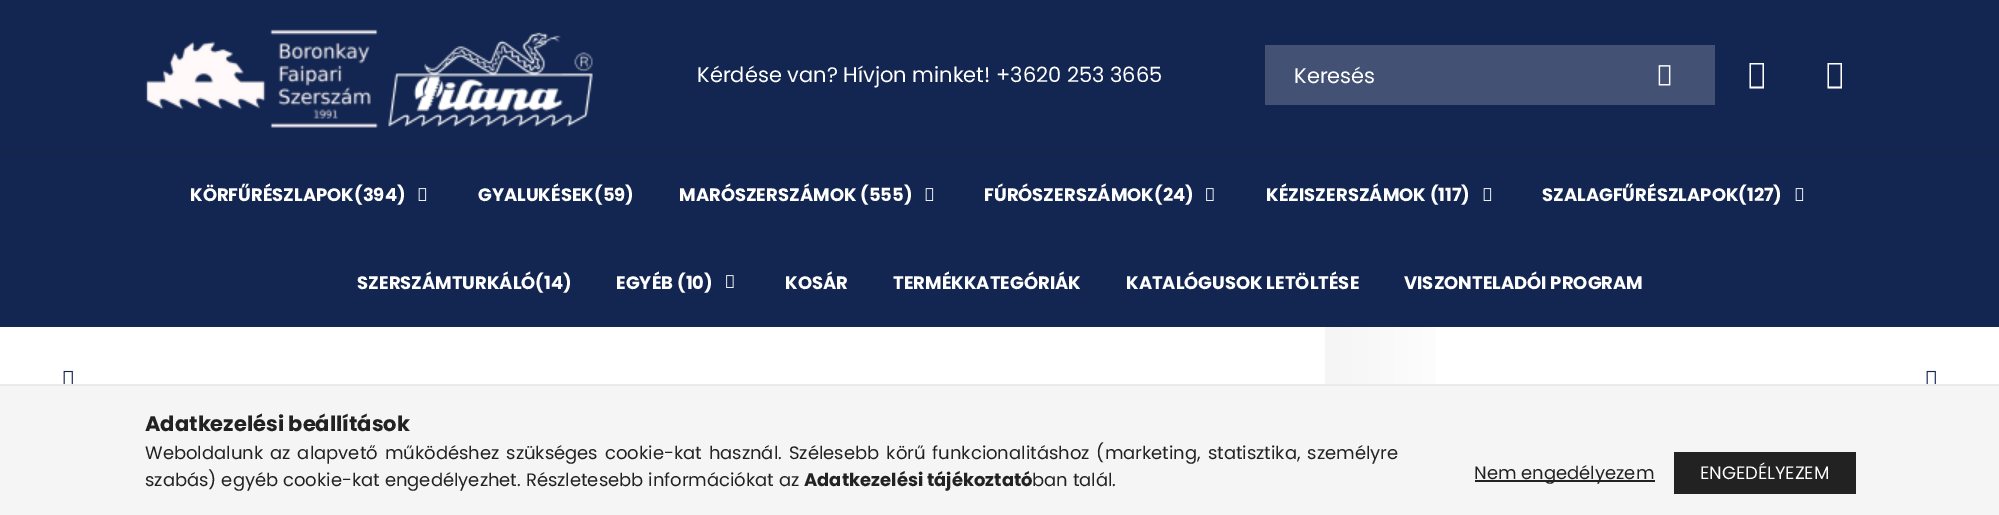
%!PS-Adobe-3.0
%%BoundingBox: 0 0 1999 515
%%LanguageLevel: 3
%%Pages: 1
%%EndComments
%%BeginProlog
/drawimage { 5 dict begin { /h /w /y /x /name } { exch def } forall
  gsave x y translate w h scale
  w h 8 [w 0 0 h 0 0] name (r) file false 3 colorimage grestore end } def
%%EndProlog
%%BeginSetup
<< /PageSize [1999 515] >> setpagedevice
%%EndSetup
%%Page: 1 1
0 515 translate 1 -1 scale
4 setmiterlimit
1 setgray
0 0 1999 515 rectfill
0.075 0.149 0.318 setrgbcolor
0 0 1999 150 rectfill
(images/1.raw) 145 29 448 99 drawimage
0.259 0.318 0.455 setrgbcolor
1265 45 450 60 rectfill
(images/2.raw) 1658 65 13 21 drawimage
1 setgray
newpath 1749.5 88.5 moveto 1749.5 63 lineto 1764 63 lineto 1764 88.5 lineto closepath 1751 86.5 moveto 1762.5 86.5 lineto 1762.5 64.5 lineto 1751 64.5 lineto closepath fill
newpath 1827.5 88.5 moveto 1827.5 63 lineto 1842 63 lineto 1842 88.5 lineto closepath 1829 86.5 moveto 1840.5 86.5 lineto 1840.5 64.5 lineto 1829 64.5 lineto closepath fill
0.075 0.149 0.318 setrgbcolor
0 152 1999 175 rectfill
0.086 0.145 0.282 setrgbcolor
0 150 1999 2 rectfill
(images/3.raw) 418 188 9 13 drawimage
(images/3.raw) 925 188 9 13 drawimage
(images/4.raw) 1206 188 8 13 drawimage
(images/3.raw) 1483 188 9 13 drawimage
(images/3.raw) 1795 188 9 13 drawimage
(images/4.raw) 726 275 8 13 drawimage
gsave newpath 1325 327 moveto 1436 327 lineto 1436 384 lineto 1325 384 lineto closepath clip newpath
<< /ShadingType 2 /ColorSpace /DeviceRGB /Coords [1325 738 1854 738] /Extend [true true] /Function << /FunctionType 3 /Domain [0 1] /Functions [<< /FunctionType 2 /Domain [0 1] /C0 [0.961 0.961 0.961] /C1 [1 1 1] /N 1 >> << /FunctionType 2 /Domain [0 1] /C0 [1 1 1] /C1 [1 1 1] /N 1 >>] /Bounds [0.28] /Encode [0 1 0 1] >> >> shfill grestore
(images/5.raw) 63 370 10 14 drawimage
(images/5.raw) 1926 370 10 14 drawimage
0.961 setgray
0 386 1999 129 rectfill
0.918 setgray
0 384 1999 2 rectfill
0.133 setgray
1475 480 180 2 rectfill
gsave newpath 1674 452 moveto 1856 452 lineto 1856 494 lineto 1674 494 lineto closepath clip newpath
<< /ShadingType 2 /ColorSpace /DeviceRGB /Coords [1311 473 1856 473] /Extend [true true] /Function << /FunctionType 3 /Domain [0 1] /Functions [<< /FunctionType 2 /Domain [0 1] /C0 [0.075 0.149 0.318] /C1 [0.075 0.149 0.318] /N 1 >> << /FunctionType 2 /Domain [0 1] /C0 [0.075 0.149 0.318] /C1 [0.133 0.133 0.133] /N 1 >> << /FunctionType 2 /Domain [0 1] /C0 [0.133 0.133 0.133] /C1 [0.133 0.133 0.133] /N 1 >>] /Bounds [0.33 0.67] /Encode [0 1 0 1 0 1] >> >> shfill grestore
/Poppins-Regular [21 0 0 -21 0 0] selectfont
1 setgray
697 82 moveto (Kérdése van? Hívjon minket! +3620 253 3665) show
1294 83 moveto (Keresés) show
/Poppins-Bold [18 0 0 -18 0 0] selectfont
190 201 moveto (KÖRFŰRÉSZLAPOK\(394\)) show
478 201 moveto (GYALUKÉSEK\(59\)) show
679 201 moveto (MARÓSZERSZÁMOK \(555\)) show
984 201 moveto (FÚRÓSZERSZÁMOK\(24\)) show
1266 201 moveto (KÉZISZERSZÁMOK \(117\)) show
1542 201 moveto (SZALAGFŰRÉSZLAPOK\(127\)) show
357 289 moveto (SZERSZÁMTURKÁLÓ\(14\)) show
616 289 moveto (EGYÉB \(10\)) show
785 289 moveto (KOSÁR) show
893 289 moveto (TERMÉKKATEGÓRIÁK) show
1126 289 moveto (KATALÓGUSOK LETÖLTÉSE) show
1404 289 moveto (VISZONTELADÓI PROGRAM) show
/Poppins-Bold [21 0 0 -21 0 0] selectfont
0.133 setgray
145 431 moveto (Adatkezelési beállítások) show
/Poppins-Regular [18 0 0 -18 0 0] selectfont
145 459 moveto 2.25 0 32 (Weboldalunk az alapvető működéshez szükséges cookie-kat használ. Szélesebb körű funkcionalitáshoz \(marketing, statisztika, személyre) widthshow
145 486 moveto (szabás\) egyéb cookie-kat engedélyezhet. Részletesebb információkat az) show
/Poppins-Bold [18 0 0 -18 0 0] selectfont
804 486 moveto (Adatkezelési tájékoztató) show
/Poppins-Regular [18 0 0 -18 0 0] selectfont
1032 486 moveto (ban talál.) show
1474 479 moveto (Nem engedélyezem) show
1 setgray
1700 479 moveto (ENGEDÉLYEZEM) show
showpage
%%EOF
